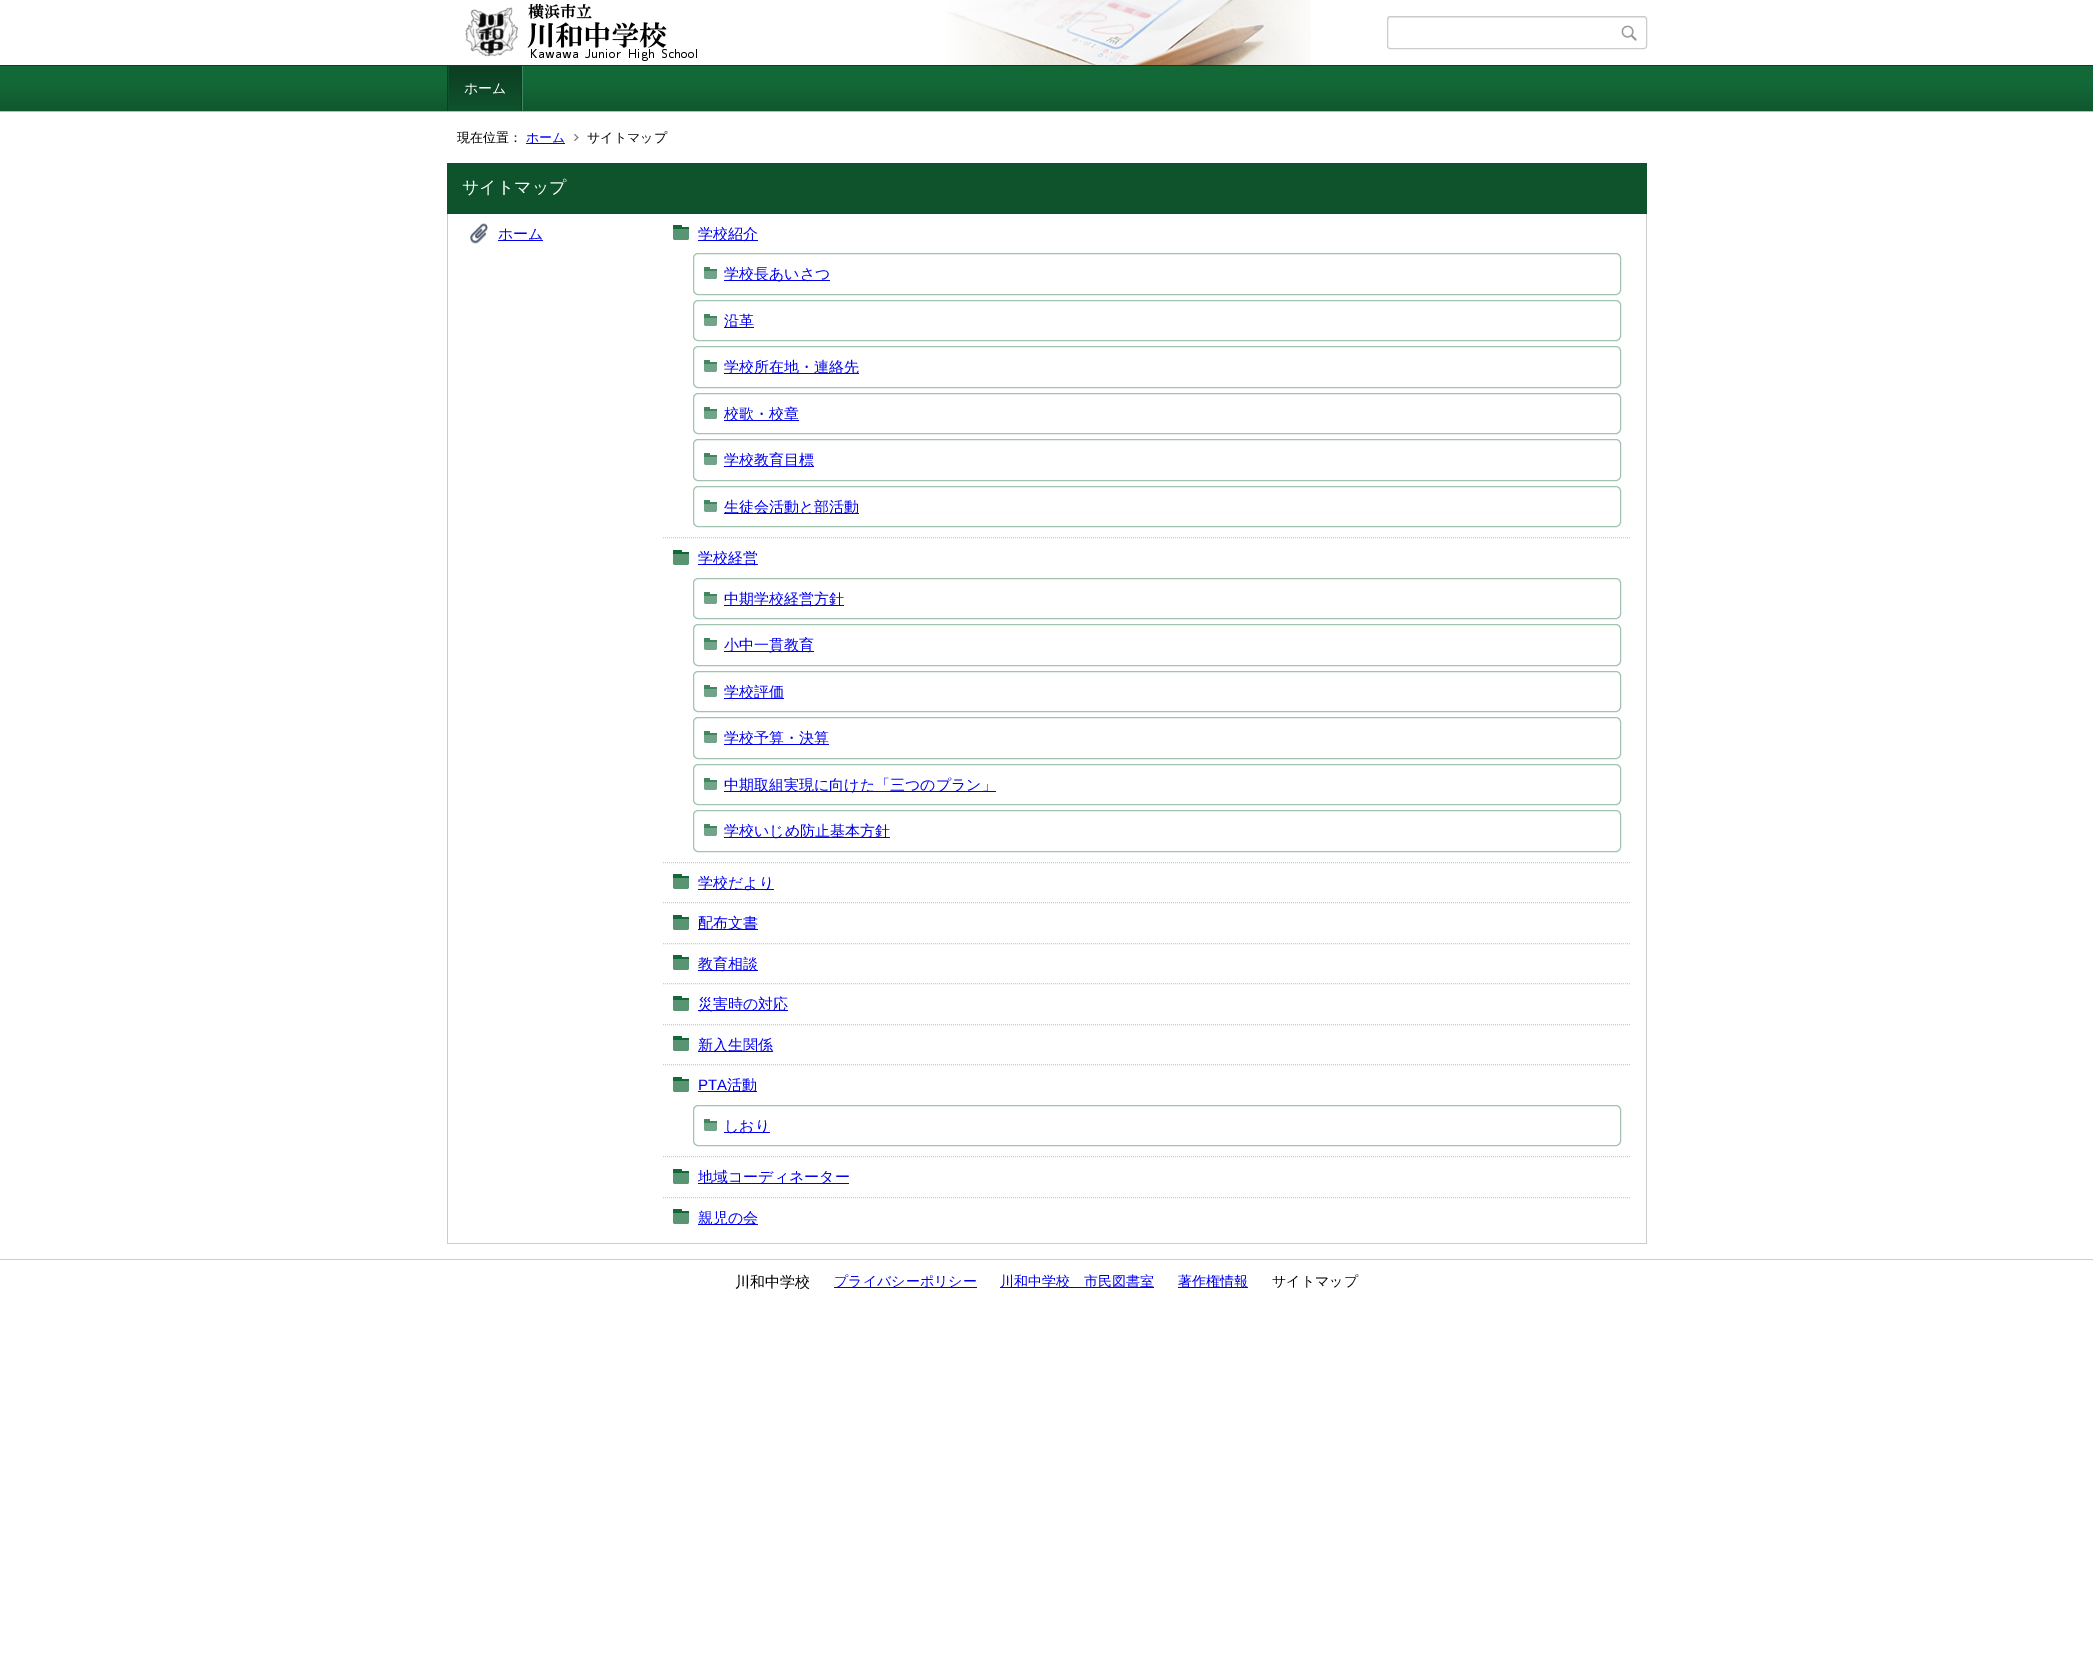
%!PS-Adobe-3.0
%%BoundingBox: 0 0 2093 1672
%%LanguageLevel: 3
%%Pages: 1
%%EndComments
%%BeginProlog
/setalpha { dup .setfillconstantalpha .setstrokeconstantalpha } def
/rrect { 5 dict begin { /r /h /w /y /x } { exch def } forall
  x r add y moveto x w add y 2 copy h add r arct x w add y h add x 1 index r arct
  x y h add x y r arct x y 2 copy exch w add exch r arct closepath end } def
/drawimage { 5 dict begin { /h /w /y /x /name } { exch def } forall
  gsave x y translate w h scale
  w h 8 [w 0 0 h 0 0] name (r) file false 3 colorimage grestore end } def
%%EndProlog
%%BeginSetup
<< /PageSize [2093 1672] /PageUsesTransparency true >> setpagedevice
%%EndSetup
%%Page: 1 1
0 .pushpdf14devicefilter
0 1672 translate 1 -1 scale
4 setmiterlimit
1 setgray
0 0 2093 1672 rectfill
(images/1.raw) 947 0 364 65 drawimage
(images/2.raw) 465 4 232 57 drawimage
0.925 setgray
newpath 1390 18 moveto 1644 18 lineto 1645 18 1646 19 1646 20 curveto 1645 17 lineto 1390 17 lineto 1388 17 1388 19 1388 20 curveto 1388 19 1389 18 1390 18 curveto closepath fill
0.8 setgray
1387.5 16.5 259 32 2.5 rrect stroke
(images/3.raw) 1621 25 16 16 drawimage
0.075 0.408 0.22 setrgbcolor
0 66 2093 18 rectfill
0.043 0.243 0.133 setrgbcolor
0 65 2093 1 rectfill
0.733 setgray
0 111 2093 1 rectfill
gsave newpath 0 84 moveto 2093 84 lineto 2093 111 lineto 0 111 lineto closepath clip newpath
<< /ShadingType 2 /ColorSpace /DeviceRGB /Coords [1047 84 1047 111] /Extend [true true] /Function << /FunctionType 2 /Domain [0 1] /C0 [0.075 0.408 0.22] /C1 [0.063 0.341 0.184] /N 1 >> >> shfill grestore
0.259 0.525 0.376 setrgbcolor
522 66 1 45 rectfill
0.043 0.243 0.133 setrgbcolor
447 66 1 45 rectfill
gsave newpath 449 66 moveto 521 66 lineto 521 111 lineto 449 111 lineto closepath clip newpath
<< /ShadingType 2 /ColorSpace /DeviceRGB /Coords [485 66 485 111] /Extend [true true] /Function << /FunctionType 2 /Domain [0 1] /C0 [0.043 0.243 0.133] /C1 [0.059 0.325 0.176] /N 1 >> >> shfill grestore
521 66 1 45 rectfill
0.059 0.325 0.176 setrgbcolor
448 66 1 45 rectfill
0 0 0.933 setrgbcolor
526 143 39 1 rectfill
0.467 setgray
newpath 575 134 moveto 578.5 137.5 lineto 577.5 138 lineto 574 134.5 lineto closepath fill
newpath 577.5 137 moveto 578.5 137.5 lineto 575 141 lineto 574 140.5 lineto closepath fill
0.059 0.325 0.176 setrgbcolor
447 163 1200 51 rectfill
0.8 setgray
1646 214 1 1030 rectfill
447 1243 1200 1 rectfill
447 214 1 1030 rectfill
(images/4.raw) 470 223 18 21 drawimage
0 0 0.933 setrgbcolor
498 240 45 1 rectfill
0.075 0.408 0.22 setrgbcolor
newpath 674 225 moveto 681 225 lineto 681.5 225 682 225.5 682 226 curveto 682 228 lineto 673 228 lineto 673 226 lineto 673 225.5 673.5 225 674 225 curveto closepath fill
0 0 0.933 setrgbcolor
698 240 60 1 rectfill
0.7 setalpha
0.075 0.408 0.22 setrgbcolor
newpath 673 227 moveto 688 227 lineto 688.5 227 689 227.5 689 228 curveto 689 238 lineto 689 239 688 240 687 240 curveto 675 240 lineto 674 240 673 239 673 238 curveto closepath fill
1 setalpha
673 227 16 2 rectfill
0.631 0.765 0.686 setrgbcolor
693.5 253.5 927 41 4.5 rrect stroke
0.259 0.525 0.376 setrgbcolor
newpath 705 267 moveto 709 267 lineto 709.5 267 710 267.5 710 268 curveto 710 270 lineto 704 270 lineto 704 268 lineto 704 267.5 704.5 267 705 267 curveto closepath fill
0 0 0.933 setrgbcolor
724 280 106 1 rectfill
0.443 0.643 0.533 setrgbcolor
newpath 704 269 moveto 716 269 lineto 716.5 269 717 269.5 717 270 curveto 717 277 lineto 717 278 716 279 715 279 curveto 706 279 lineto 705 279 704 278 704 277 curveto closepath fill
0.259 0.525 0.376 setrgbcolor
704 269 13 2 rectfill
0.631 0.765 0.686 setrgbcolor
693.5 300.5 927 40 4.5 rrect stroke
0.259 0.525 0.376 setrgbcolor
newpath 705 314 moveto 709 314 lineto 709.5 314 710 314.5 710 315 curveto 710 317 lineto 704 317 lineto 704 315 lineto 704 314.5 704.5 314 705 314 curveto closepath fill
0 0 0.933 setrgbcolor
724 327 30 1 rectfill
0.443 0.643 0.533 setrgbcolor
newpath 704 316 moveto 716 316 lineto 716.5 316 717 316.5 717 317 curveto 717 324 lineto 717 325 716 326 715 326 curveto 706 326 lineto 705 326 704 325 704 324 curveto closepath fill
0.259 0.525 0.376 setrgbcolor
704 316 13 2 rectfill
0.631 0.765 0.686 setrgbcolor
693.5 346.5 927 41 4.5 rrect stroke
0.259 0.525 0.376 setrgbcolor
newpath 705 360 moveto 709 360 lineto 709.5 360 710 360.5 710 361 curveto 710 363 lineto 704 363 lineto 704 361 lineto 704 360.5 704.5 360 705 360 curveto closepath fill
0 0 0.933 setrgbcolor
724 373 135 1 rectfill
0.443 0.643 0.533 setrgbcolor
newpath 704 362 moveto 716 362 lineto 716.5 362 717 362.5 717 363 curveto 717 370 lineto 717 371 716 372 715 372 curveto 706 372 lineto 705 372 704 371 704 370 curveto closepath fill
0.259 0.525 0.376 setrgbcolor
704 362 13 2 rectfill
0.631 0.765 0.686 setrgbcolor
693.5 393.5 927 40 4.5 rrect stroke
0.259 0.525 0.376 setrgbcolor
newpath 705 407 moveto 709 407 lineto 709.5 407 710 407.5 710 408 curveto 710 410 lineto 704 410 lineto 704 408 lineto 704 407.5 704.5 407 705 407 curveto closepath fill
0 0 0.933 setrgbcolor
724 420 75 1 rectfill
0.443 0.643 0.533 setrgbcolor
newpath 704 409 moveto 716 409 lineto 716.5 409 717 409.5 717 410 curveto 717 417 lineto 717 418 716 419 715 419 curveto 706 419 lineto 705 419 704 418 704 417 curveto closepath fill
0.259 0.525 0.376 setrgbcolor
704 409 13 2 rectfill
0.631 0.765 0.686 setrgbcolor
693.5 439.5 927 41 4.5 rrect stroke
0.259 0.525 0.376 setrgbcolor
newpath 705 453 moveto 709 453 lineto 709.5 453 710 453.5 710 454 curveto 710 456 lineto 704 456 lineto 704 454 lineto 704 453.5 704.5 453 705 453 curveto closepath fill
0 0 0.933 setrgbcolor
724 466 90 1 rectfill
0.443 0.643 0.533 setrgbcolor
newpath 704 455 moveto 716 455 lineto 716.5 455 717 455.5 717 456 curveto 717 463 lineto 717 464 716 465 715 465 curveto 706 465 lineto 705 465 704 464 704 463 curveto closepath fill
0.259 0.525 0.376 setrgbcolor
704 455 13 2 rectfill
0.631 0.765 0.686 setrgbcolor
693.5 486.5 927 40 4.5 rrect stroke
0.259 0.525 0.376 setrgbcolor
newpath 705 500 moveto 709 500 lineto 709.5 500 710 500.5 710 501 curveto 710 503 lineto 704 503 lineto 704 501 lineto 704 500.5 704.5 500 705 500 curveto closepath fill
0 0 0.933 setrgbcolor
724 513 135 1 rectfill
0.443 0.643 0.533 setrgbcolor
newpath 704 502 moveto 716 502 lineto 716.5 502 717 502.5 717 503 curveto 717 510 lineto 717 511 716 512 715 512 curveto 706 512 lineto 705 512 704 511 704 510 curveto closepath fill
0.259 0.525 0.376 setrgbcolor
704 502 13 2 rectfill
0.8 setgray
[1 1] 0 setdash
newpath 663 537.5 moveto 1631 537.5 lineto stroke
0.075 0.408 0.22 setrgbcolor
newpath 674 550 moveto 681 550 lineto 681.5 550 682 550.5 682 551 curveto 682 553 lineto 673 553 lineto 673 551 lineto 673 550.5 673.5 550 674 550 curveto closepath fill
0 0 0.933 setrgbcolor
698 564 60 1 rectfill
0.7 setalpha
0.075 0.408 0.22 setrgbcolor
newpath 673 552 moveto 688 552 lineto 688.5 552 689 552.5 689 553 curveto 689 563 lineto 689 564 688 565 687 565 curveto 675 565 lineto 674 565 673 564 673 563 curveto closepath fill
1 setalpha
673 552 16 2 rectfill
0.631 0.765 0.686 setrgbcolor
[] 0 setdash
693.5 578.5 927 40 4.5 rrect stroke
0.259 0.525 0.376 setrgbcolor
newpath 705 592 moveto 709 592 lineto 709.5 592 710 592.5 710 593 curveto 710 595 lineto 704 595 lineto 704 593 lineto 704 592.5 704.5 592 705 592 curveto closepath fill
0 0 0.933 setrgbcolor
724 605 120 1 rectfill
0.443 0.643 0.533 setrgbcolor
newpath 704 594 moveto 716 594 lineto 716.5 594 717 594.5 717 595 curveto 717 602 lineto 717 603 716 604 715 604 curveto 706 604 lineto 705 604 704 603 704 602 curveto closepath fill
0.259 0.525 0.376 setrgbcolor
704 594 13 2 rectfill
0.631 0.765 0.686 setrgbcolor
693.5 624.5 927 41 4.5 rrect stroke
0.259 0.525 0.376 setrgbcolor
newpath 705 638 moveto 709 638 lineto 709.5 638 710 638.5 710 639 curveto 710 641 lineto 704 641 lineto 704 639 lineto 704 638.5 704.5 638 705 638 curveto closepath fill
0 0 0.933 setrgbcolor
724 651 90 1 rectfill
0.443 0.643 0.533 setrgbcolor
newpath 704 640 moveto 716 640 lineto 716.5 640 717 640.5 717 641 curveto 717 648 lineto 717 649 716 650 715 650 curveto 706 650 lineto 705 650 704 649 704 648 curveto closepath fill
0.259 0.525 0.376 setrgbcolor
704 640 13 2 rectfill
0.631 0.765 0.686 setrgbcolor
693.5 671.5 927 40 4.5 rrect stroke
0.259 0.525 0.376 setrgbcolor
newpath 705 685 moveto 709 685 lineto 709.5 685 710 685.5 710 686 curveto 710 688 lineto 704 688 lineto 704 686 lineto 704 685.5 704.5 685 705 685 curveto closepath fill
0 0 0.933 setrgbcolor
724 698 60 1 rectfill
0.443 0.643 0.533 setrgbcolor
newpath 704 687 moveto 716 687 lineto 716.5 687 717 687.5 717 688 curveto 717 695 lineto 717 696 716 697 715 697 curveto 706 697 lineto 705 697 704 696 704 695 curveto closepath fill
0.259 0.525 0.376 setrgbcolor
704 687 13 2 rectfill
0.631 0.765 0.686 setrgbcolor
693.5 717.5 927 41 4.5 rrect stroke
0.259 0.525 0.376 setrgbcolor
newpath 705 731 moveto 709 731 lineto 709.5 731 710 731.5 710 732 curveto 710 734 lineto 704 734 lineto 704 732 lineto 704 731.5 704.5 731 705 731 curveto closepath fill
0 0 0.933 setrgbcolor
724 744 105 1 rectfill
0.443 0.643 0.533 setrgbcolor
newpath 704 733 moveto 716 733 lineto 716.5 733 717 733.5 717 734 curveto 717 741 lineto 717 742 716 743 715 743 curveto 706 743 lineto 705 743 704 742 704 741 curveto closepath fill
0.259 0.525 0.376 setrgbcolor
704 733 13 2 rectfill
0.631 0.765 0.686 setrgbcolor
693.5 764.5 927 40 4.5 rrect stroke
0.259 0.525 0.376 setrgbcolor
newpath 705 778 moveto 709 778 lineto 709.5 778 710 778.5 710 779 curveto 710 781 lineto 704 781 lineto 704 779 lineto 704 778.5 704.5 778 705 778 curveto closepath fill
0 0 0.933 setrgbcolor
724 791 272 1 rectfill
0.443 0.643 0.533 setrgbcolor
newpath 704 780 moveto 716 780 lineto 716.5 780 717 780.5 717 781 curveto 717 788 lineto 717 789 716 790 715 790 curveto 706 790 lineto 705 790 704 789 704 788 curveto closepath fill
0.259 0.525 0.376 setrgbcolor
704 780 13 2 rectfill
0.631 0.765 0.686 setrgbcolor
693.5 810.5 927 41 4.5 rrect stroke
0.259 0.525 0.376 setrgbcolor
newpath 705 824 moveto 709 824 lineto 709.5 824 710 824.5 710 825 curveto 710 827 lineto 704 827 lineto 704 825 lineto 704 824.5 704.5 824 705 824 curveto closepath fill
0 0 0.933 setrgbcolor
724 837 166 1 rectfill
0.443 0.643 0.533 setrgbcolor
newpath 704 826 moveto 716 826 lineto 716.5 826 717 826.5 717 827 curveto 717 834 lineto 717 835 716 836 715 836 curveto 706 836 lineto 705 836 704 835 704 834 curveto closepath fill
0.259 0.525 0.376 setrgbcolor
704 826 13 2 rectfill
0.8 setgray
[1 1] 0 setdash
newpath 663 862.5 moveto 1631 862.5 lineto stroke
0.075 0.408 0.22 setrgbcolor
newpath 674 874 moveto 681 874 lineto 681.5 874 682 874.5 682 875 curveto 682 877 lineto 673 877 lineto 673 875 lineto 673 874.5 673.5 874 674 874 curveto closepath fill
0 0 0.933 setrgbcolor
698 889 76 1 rectfill
0.7 setalpha
0.075 0.408 0.22 setrgbcolor
newpath 673 876 moveto 688 876 lineto 688.5 876 689 876.5 689 877 curveto 689 887 lineto 689 888 688 889 687 889 curveto 675 889 lineto 674 889 673 888 673 887 curveto closepath fill
1 setalpha
673 876 16 2 rectfill
0.8 setgray
newpath 663 902.5 moveto 1631 902.5 lineto stroke
0.075 0.408 0.22 setrgbcolor
newpath 674 915 moveto 681 915 lineto 681.5 915 682 915.5 682 916 curveto 682 918 lineto 673 918 lineto 673 916 lineto 673 915.5 673.5 915 674 915 curveto closepath fill
0 0 0.933 setrgbcolor
698 929 60 1 rectfill
0.7 setalpha
0.075 0.408 0.22 setrgbcolor
newpath 673 917 moveto 688 917 lineto 688.5 917 689 917.5 689 918 curveto 689 928 lineto 689 929 688 930 687 930 curveto 675 930 lineto 674 930 673 929 673 928 curveto closepath fill
1 setalpha
673 917 16 2 rectfill
0.8 setgray
newpath 663 943.5 moveto 1631 943.5 lineto stroke
0.075 0.408 0.22 setrgbcolor
newpath 674 955 moveto 681 955 lineto 681.5 955 682 955.5 682 956 curveto 682 958 lineto 673 958 lineto 673 956 lineto 673 955.5 673.5 955 674 955 curveto closepath fill
0 0 0.933 setrgbcolor
698 970 60 1 rectfill
0.7 setalpha
0.075 0.408 0.22 setrgbcolor
newpath 673 957 moveto 688 957 lineto 688.5 957 689 957.5 689 958 curveto 689 968 lineto 689 969 688 970 687 970 curveto 675 970 lineto 674 970 673 969 673 968 curveto closepath fill
1 setalpha
673 957 16 2 rectfill
0.8 setgray
newpath 663 983.5 moveto 1631 983.5 lineto stroke
0.075 0.408 0.22 setrgbcolor
newpath 674 996 moveto 681 996 lineto 681.5 996 682 996.5 682 997 curveto 682 999 lineto 673 999 lineto 673 997 lineto 673 996.5 673.5 996 674 996 curveto closepath fill
0 0 0.933 setrgbcolor
698 1010 90 1 rectfill
0.7 setalpha
0.075 0.408 0.22 setrgbcolor
newpath 673 998 moveto 688 998 lineto 688.5 998 689 998.5 689 999 curveto 689 1009 lineto 689 1010 688 1011 687 1011 curveto 675 1011 lineto 674 1011 673 1010 673 1009 curveto closepath fill
1 setalpha
673 998 16 2 rectfill
0.8 setgray
newpath 663 1024.5 moveto 1631 1024.5 lineto stroke
0.075 0.408 0.22 setrgbcolor
newpath 674 1036 moveto 681 1036 lineto 681.5 1036 682 1036.5 682 1037 curveto 682 1039 lineto 673 1039 lineto 673 1037 lineto 673 1036.5 673.5 1036 674 1036 curveto closepath fill
0 0 0.933 setrgbcolor
698 1051 75 1 rectfill
0.7 setalpha
0.075 0.408 0.22 setrgbcolor
newpath 673 1038 moveto 688 1038 lineto 688.5 1038 689 1038.5 689 1039 curveto 689 1049 lineto 689 1050 688 1051 687 1051 curveto 675 1051 lineto 674 1051 673 1050 673 1049 curveto closepath fill
1 setalpha
673 1038 16 2 rectfill
0.8 setgray
newpath 663 1064.5 moveto 1631 1064.5 lineto stroke
0.075 0.408 0.22 setrgbcolor
newpath 674 1077 moveto 681 1077 lineto 681.5 1077 682 1077.5 682 1078 curveto 682 1080 lineto 673 1080 lineto 673 1078 lineto 673 1077.5 673.5 1077 674 1077 curveto closepath fill
0.7 setalpha
newpath 673 1079 moveto 688 1079 lineto 688.5 1079 689 1079.5 689 1080 curveto 689 1090 lineto 689 1091 688 1092 687 1092 curveto 675 1092 lineto 674 1092 673 1091 673 1090 curveto closepath fill
1 setalpha
673 1079 16 2 rectfill
0 0 0.933 setrgbcolor
698 1091 59 1 rectfill
0.631 0.765 0.686 setrgbcolor
[] 0 setdash
693.5 1105.5 927 40 4.5 rrect stroke
0.259 0.525 0.376 setrgbcolor
newpath 705 1119 moveto 709 1119 lineto 709.5 1119 710 1119.5 710 1120 curveto 710 1122 lineto 704 1122 lineto 704 1120 lineto 704 1119.5 704.5 1119 705 1119 curveto closepath fill
0 0 0.933 setrgbcolor
724 1132 46 1 rectfill
0.443 0.643 0.533 setrgbcolor
newpath 704 1121 moveto 716 1121 lineto 716.5 1121 717 1121.5 717 1122 curveto 717 1129 lineto 717 1130 716 1131 715 1131 curveto 706 1131 lineto 705 1131 704 1130 704 1129 curveto closepath fill
0.259 0.525 0.376 setrgbcolor
704 1121 13 2 rectfill
0.8 setgray
[1 1] 0 setdash
newpath 663 1156.5 moveto 1631 1156.5 lineto stroke
0.075 0.408 0.22 setrgbcolor
newpath 674 1169 moveto 681 1169 lineto 681.5 1169 682 1169.5 682 1170 curveto 682 1172 lineto 673 1172 lineto 673 1170 lineto 673 1169.5 673.5 1169 674 1169 curveto closepath fill
0 0 0.933 setrgbcolor
698 1183 151 1 rectfill
0.7 setalpha
0.075 0.408 0.22 setrgbcolor
newpath 673 1171 moveto 688 1171 lineto 688.5 1171 689 1171.5 689 1172 curveto 689 1182 lineto 689 1183 688 1184 687 1184 curveto 675 1184 lineto 674 1184 673 1183 673 1182 curveto closepath fill
1 setalpha
673 1171 16 2 rectfill
0.8 setgray
newpath 663 1197.5 moveto 1631 1197.5 lineto stroke
0.075 0.408 0.22 setrgbcolor
newpath 674 1209 moveto 681 1209 lineto 681.5 1209 682 1209.5 682 1210 curveto 682 1212 lineto 673 1212 lineto 673 1210 lineto 673 1209.5 673.5 1209 674 1209 curveto closepath fill
0 0 0.933 setrgbcolor
698 1224 60 1 rectfill
0.7 setalpha
0.075 0.408 0.22 setrgbcolor
newpath 673 1211 moveto 688 1211 lineto 688.5 1211 689 1211.5 689 1212 curveto 689 1222 lineto 689 1223 688 1224 687 1224 curveto 675 1224 lineto 674 1224 673 1223 673 1222 curveto closepath fill
1 setalpha
673 1211 16 2 rectfill
0.8 setgray
0 1259 2093 1 rectfill
0 0 0.933 setrgbcolor
834 1287 143 1 rectfill
1000 1287 154 1 rectfill
1178 1287 70 1 rectfill
/WenQuanYiZenHei-Medium [14 0 0 -14 0 0] selectfont
1 setgray
464 93 moveto (ホーム) show
/WenQuanYiZenHei-Medium [13 0 0 -13 0 0] selectfont
0 setgray
457 142 moveto (現在位置：) show
0 0 0.933 setrgbcolor
526 142 moveto (ホーム) show
0 setgray
587 142 moveto (サイトマップ) show
/WenQuanYiZenHei-Medium [17 0 0 -17 0 0] selectfont
1 setgray
462 193 moveto (サイトマップ) show
/WenQuanYiZenHei-Medium [15 0 0 -15 0 0] selectfont
0 0 0.933 setrgbcolor
498 239 moveto (ホーム) show
698 239 moveto (学校紹介) show
724 279 moveto (学校長あいさつ) show
724 326 moveto (沿革) show
724 372 moveto (学校所在地・連絡先) show
724 419 moveto (校歌・校章) show
724 465 moveto (学校教育目標) show
724 512 moveto (生徒会活動と部活動) show
698 563 moveto (学校経営) show
724 604 moveto (中期学校経営方針) show
724 650 moveto (小中一貫教育) show
724 697 moveto (学校評価) show
724 743 moveto (学校予算・決算) show
724 790 moveto (中期取組実現に向けた「三つのプラン」) show
724 836 moveto (学校いじめ防止基本方針) show
698 888 moveto (学校だより) show
698 928 moveto (配布文書) show
698 969 moveto (教育相談) show
698 1009 moveto (災害時の対応) show
698 1050 moveto (新入生関係) show
/LiberationSans-Regular [15 0 0 -15 0 0] selectfont
698 1090 moveto (PTA) show
/WenQuanYiZenHei-Medium [15 0 0 -15 0 0] selectfont
727 1090 moveto (活動) show
724 1131 moveto (しおり) show
698 1182 moveto (地域コーディネーター) show
698 1223 moveto (親児の会) show
0 setgray
735 1287 moveto (川和中学校) show
/WenQuanYiZenHei-Medium [14 0 0 -14 0 0] selectfont
0 0 0.933 setrgbcolor
834 1286 moveto (プライバシーポリシー) show
1000 1286 moveto (川和中学校　市民図書室) show
1178 1286 moveto (著作権情報) show
0 setgray
1272 1286 moveto (サイトマップ) show
.poppdf14devicefilter showpage
%%EOF
